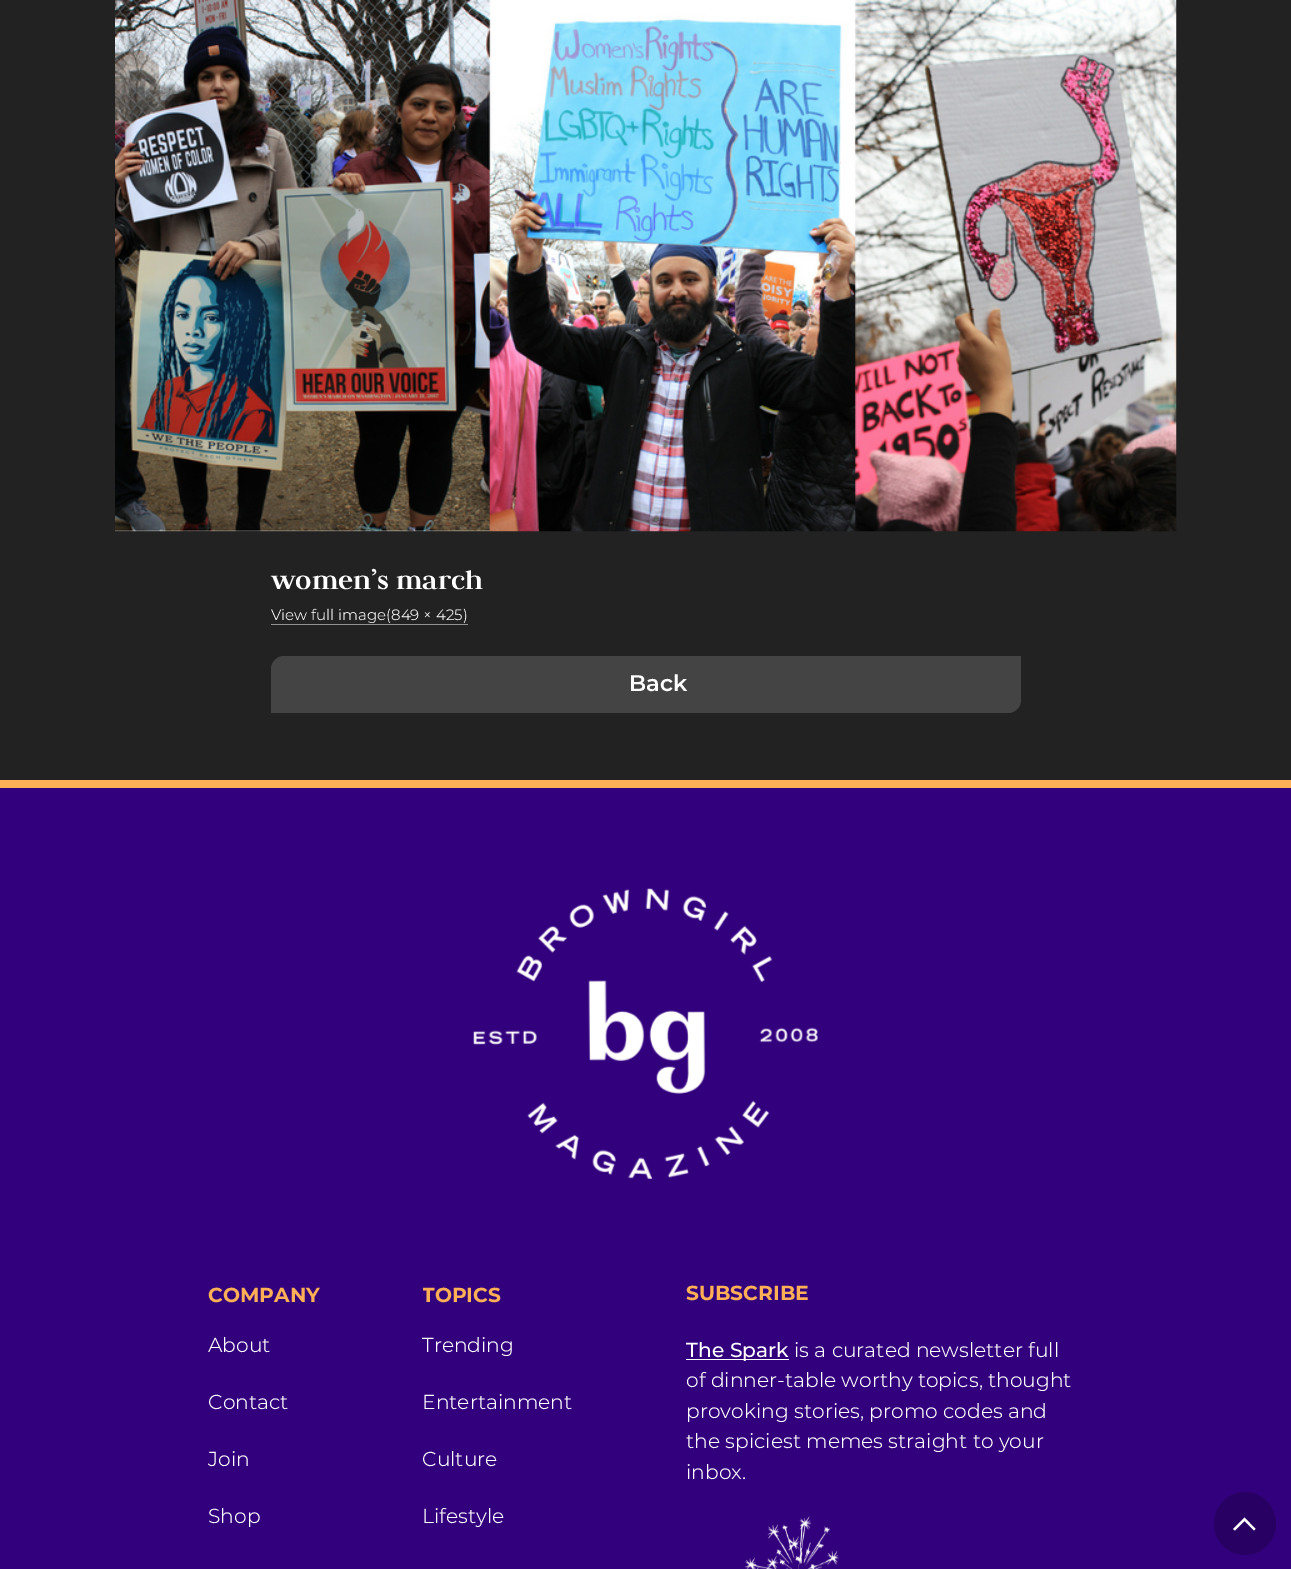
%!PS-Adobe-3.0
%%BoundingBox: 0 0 1291 1569
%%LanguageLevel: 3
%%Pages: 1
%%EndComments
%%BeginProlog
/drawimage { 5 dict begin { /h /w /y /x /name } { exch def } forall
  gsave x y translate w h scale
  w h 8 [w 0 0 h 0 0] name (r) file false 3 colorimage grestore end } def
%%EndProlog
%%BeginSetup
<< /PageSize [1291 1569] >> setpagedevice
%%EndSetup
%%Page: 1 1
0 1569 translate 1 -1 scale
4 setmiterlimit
0.133 setgray
0 0 1291 1569 rectfill
(images/1.raw) 115 0 1062 532 drawimage
0.569 setgray
271 624 197 1 rectfill
0.267 setgray
newpath 284 656 moveto 1021 656 lineto 1021 700 lineto 1021 707 1015 713 1008 713 curveto 271 713 lineto 271 669 lineto 271 662 277 656 284 656 curveto closepath fill
0.196 0 0.49 setrgbcolor
0 788 1291 781 rectfill
1 0.686 0.333 setrgbcolor
0 780 1291 8 rectfill
(images/2.raw) 473 888 345 291 drawimage
1 setgray
686 1359 103 1 rectfill
(images/3.raw) 745 1516 94 53 drawimage
0.157 0 0.392 setrgbcolor
newpath 1276 1524 moveto 1276 1541 1262 1555 1245 1555 curveto 1228 1555 1214 1541 1214 1524 curveto 1214 1506 1228 1492 1245 1492 curveto 1262 1492 1276 1506 1276 1524 curveto closepath fill
1 setgray
newpath 1255.5 1529 moveto 1254 1530.5 lineto 1244.5 1521 lineto 1235 1530.5 lineto 1233 1529 lineto 1244.5 1517.5 lineto closepath fill
/Judson-Bold [30 0 0 -30 0 0] selectfont
271 589 moveto (women’s march) show
/Montserrat-Light [15 0 0 -15 0 0] selectfont
271 620 moveto (View full image\(849 × 425\)) show
/Montserrat-SemiBold [22.5 0 0 -22.5 0 0] selectfont
629 691 moveto (Back) show
/Montserrat-Bold [20.25 0 0 -20.25 0 0] selectfont
1 0.686 0.333 setrgbcolor
208 1302 moveto (COMPANY) show
/Montserrat-Light [20.25 0 0 -20.25 0 0] selectfont
1 setgray
208 1352 moveto (About) show
208 1409 moveto (Contact) show
208 1466 moveto (Join) show
208 1523 moveto (Shop) show
gsave
423 1280 183 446 rectclip
/Montserrat-Bold [20.25 0 0 -20.25 0 0] selectfont
1 0.686 0.333 setrgbcolor
422 1302 moveto (TOPICS) show
grestore
422 1352 moveto (Trending) show
422 1409 moveto (Entertainment) show
422 1466 moveto (Culture) show
422 1523 moveto (Lifestyle) show
/Montserrat-Bold [20.25 0 0 -20.25 0 0] selectfont
1 0.686 0.333 setrgbcolor
686 1300 moveto (SUBSCRIBE) show
/Montserrat-Medium [20.25 0 0 -20.25 0 0] selectfont
1 setgray
686 1357 moveto (The Spark) show
/Montserrat-Light [20.25 0 0 -20.25 0 0] selectfont
794 1357 moveto (is a curated newsletter full) show
686 1387 moveto (of dinner-table worthy topics, thought) show
686 1418 moveto (provoking stories, promo codes and) show
686 1448 moveto (the spiciest memes straight to your) show
686 1479 moveto (inbox.) show
showpage
%%EOF
